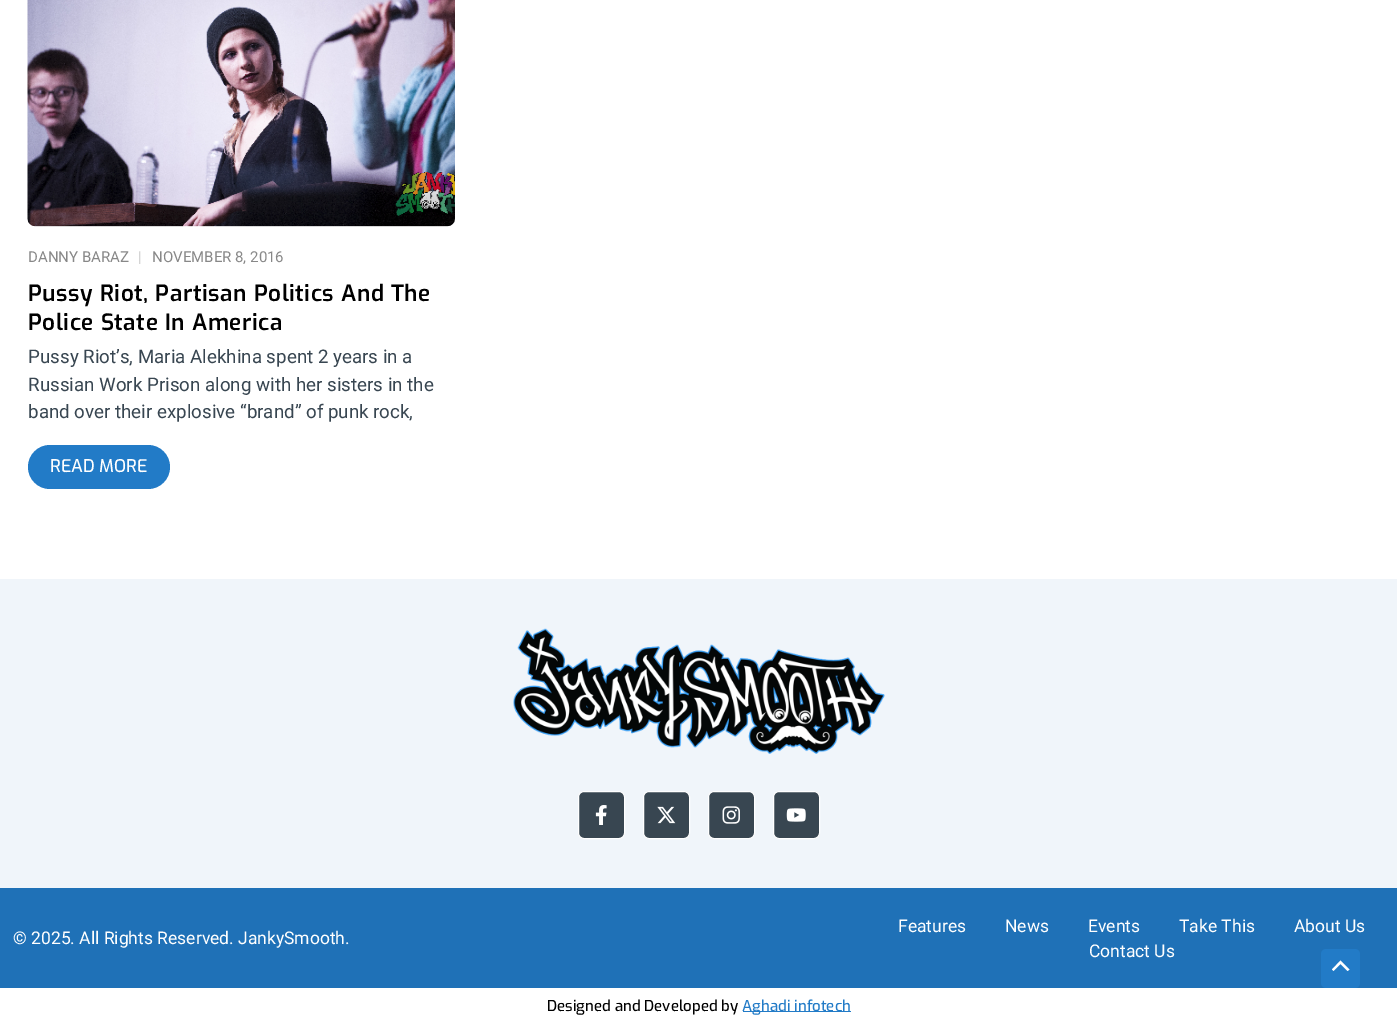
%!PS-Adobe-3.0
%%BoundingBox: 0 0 1397 1024
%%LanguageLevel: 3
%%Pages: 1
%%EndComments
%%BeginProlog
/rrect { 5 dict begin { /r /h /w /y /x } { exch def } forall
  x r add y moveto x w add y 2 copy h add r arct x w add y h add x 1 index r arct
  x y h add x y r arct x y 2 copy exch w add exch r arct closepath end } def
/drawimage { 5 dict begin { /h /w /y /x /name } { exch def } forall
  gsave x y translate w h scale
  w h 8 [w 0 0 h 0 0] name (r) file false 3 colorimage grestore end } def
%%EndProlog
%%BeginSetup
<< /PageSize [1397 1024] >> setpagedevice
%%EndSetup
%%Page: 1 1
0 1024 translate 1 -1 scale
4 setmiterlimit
1 setgray
0 0 1397 1024 rectfill
(images/1.raw) 27 0 428 227 drawimage
0.133 0.482 0.78 setrgbcolor
28 445 142 44 22 rrect fill
0.941 0.961 0.98 setrgbcolor
0 579 1397 309 rectfill
(images/2.raw) 513 628 372 126 drawimage
0.22 0.275 0.318 setrgbcolor
578.5 791.5 46 47 5.5 rrect gsave fill grestore
1 setgray
stroke
(images/3.raw) 595 805 12 20 drawimage
0.22 0.275 0.318 setrgbcolor
643.5 791.5 46 47 5.5 rrect gsave fill grestore
1 setgray
stroke
(images/4.raw) 657 806 19 18 drawimage
0.22 0.275 0.318 setrgbcolor
708.5 791.5 46 47 5.5 rrect gsave fill grestore
1 setgray
stroke
(images/5.raw) 722 806 18 18 drawimage
0.22 0.275 0.318 setrgbcolor
773.5 791.5 46 47 5.5 rrect gsave fill grestore
1 setgray
stroke
(images/6.raw) 786 808 20 14 drawimage
0.122 0.443 0.718 setrgbcolor
0 888 1397 100 rectfill
0.133 0.482 0.78 setrgbcolor
743 1011 108 1 rectfill
1321 949 39 39 5 rrect fill
1 setgray
newpath 1349.5 969.5 moveto 1340.5 960.5 lineto 1332 969.5 lineto 1333.5 971 lineto 1340.5 964 lineto 1347.5 971 lineto closepath fill
/Roboto-Regular [15 0 0 -15 0 0] selectfont
0.533 setgray
28 262 moveto (DANNY BARAZ) show
0.78 setgray
138 262 moveto (|) show
0.533 setgray
152 262 moveto (NOVEMBER 8, 2016) show
/Exo-SemiBold [22.5 0 0 -22.5 0 0] selectfont
0 setgray
28 301 moveto 0.6 0 (Pussy Riot, Partisan Politics And The) ashow
28 330 moveto 0.6 0 (Police State In America) ashow
/Roboto-Regular [18.75 0 0 -18.75 0 0] selectfont
0.22 0.275 0.318 setrgbcolor
28 363 moveto (Pussy Riot’s, Maria Alekhina spent 2 years in a) show
28 391 moveto (Russian Work Prison along with her sisters in the) show
28 418 moveto (band over their explosive “brand” of punk rock,) show
/Exo-Medium [17.5 0 0 -17.5 0 0] selectfont
1 setgray
50 472 moveto (READ MORE) show
/Roboto-Regular [17.5 0 0 -17.5 0 0] selectfont
13 944 moveto (© 2025. All Rights Reserved. JankySmooth.) show
898 932 moveto (Features) show
1005 932 moveto (News) show
1088 932 moveto (Events) show
1179 932 moveto (Take This) show
1294 932 moveto (About Us) show
1089 957 moveto (Contact Us) show
/Exo-Medium [15 0 0 -15 0 0] selectfont
0 setgray
547 1011 moveto (Designed and Developed by) show
0.133 0.482 0.78 setrgbcolor
742 1011 moveto (Aghadi infotech) show
showpage
%%EOF
